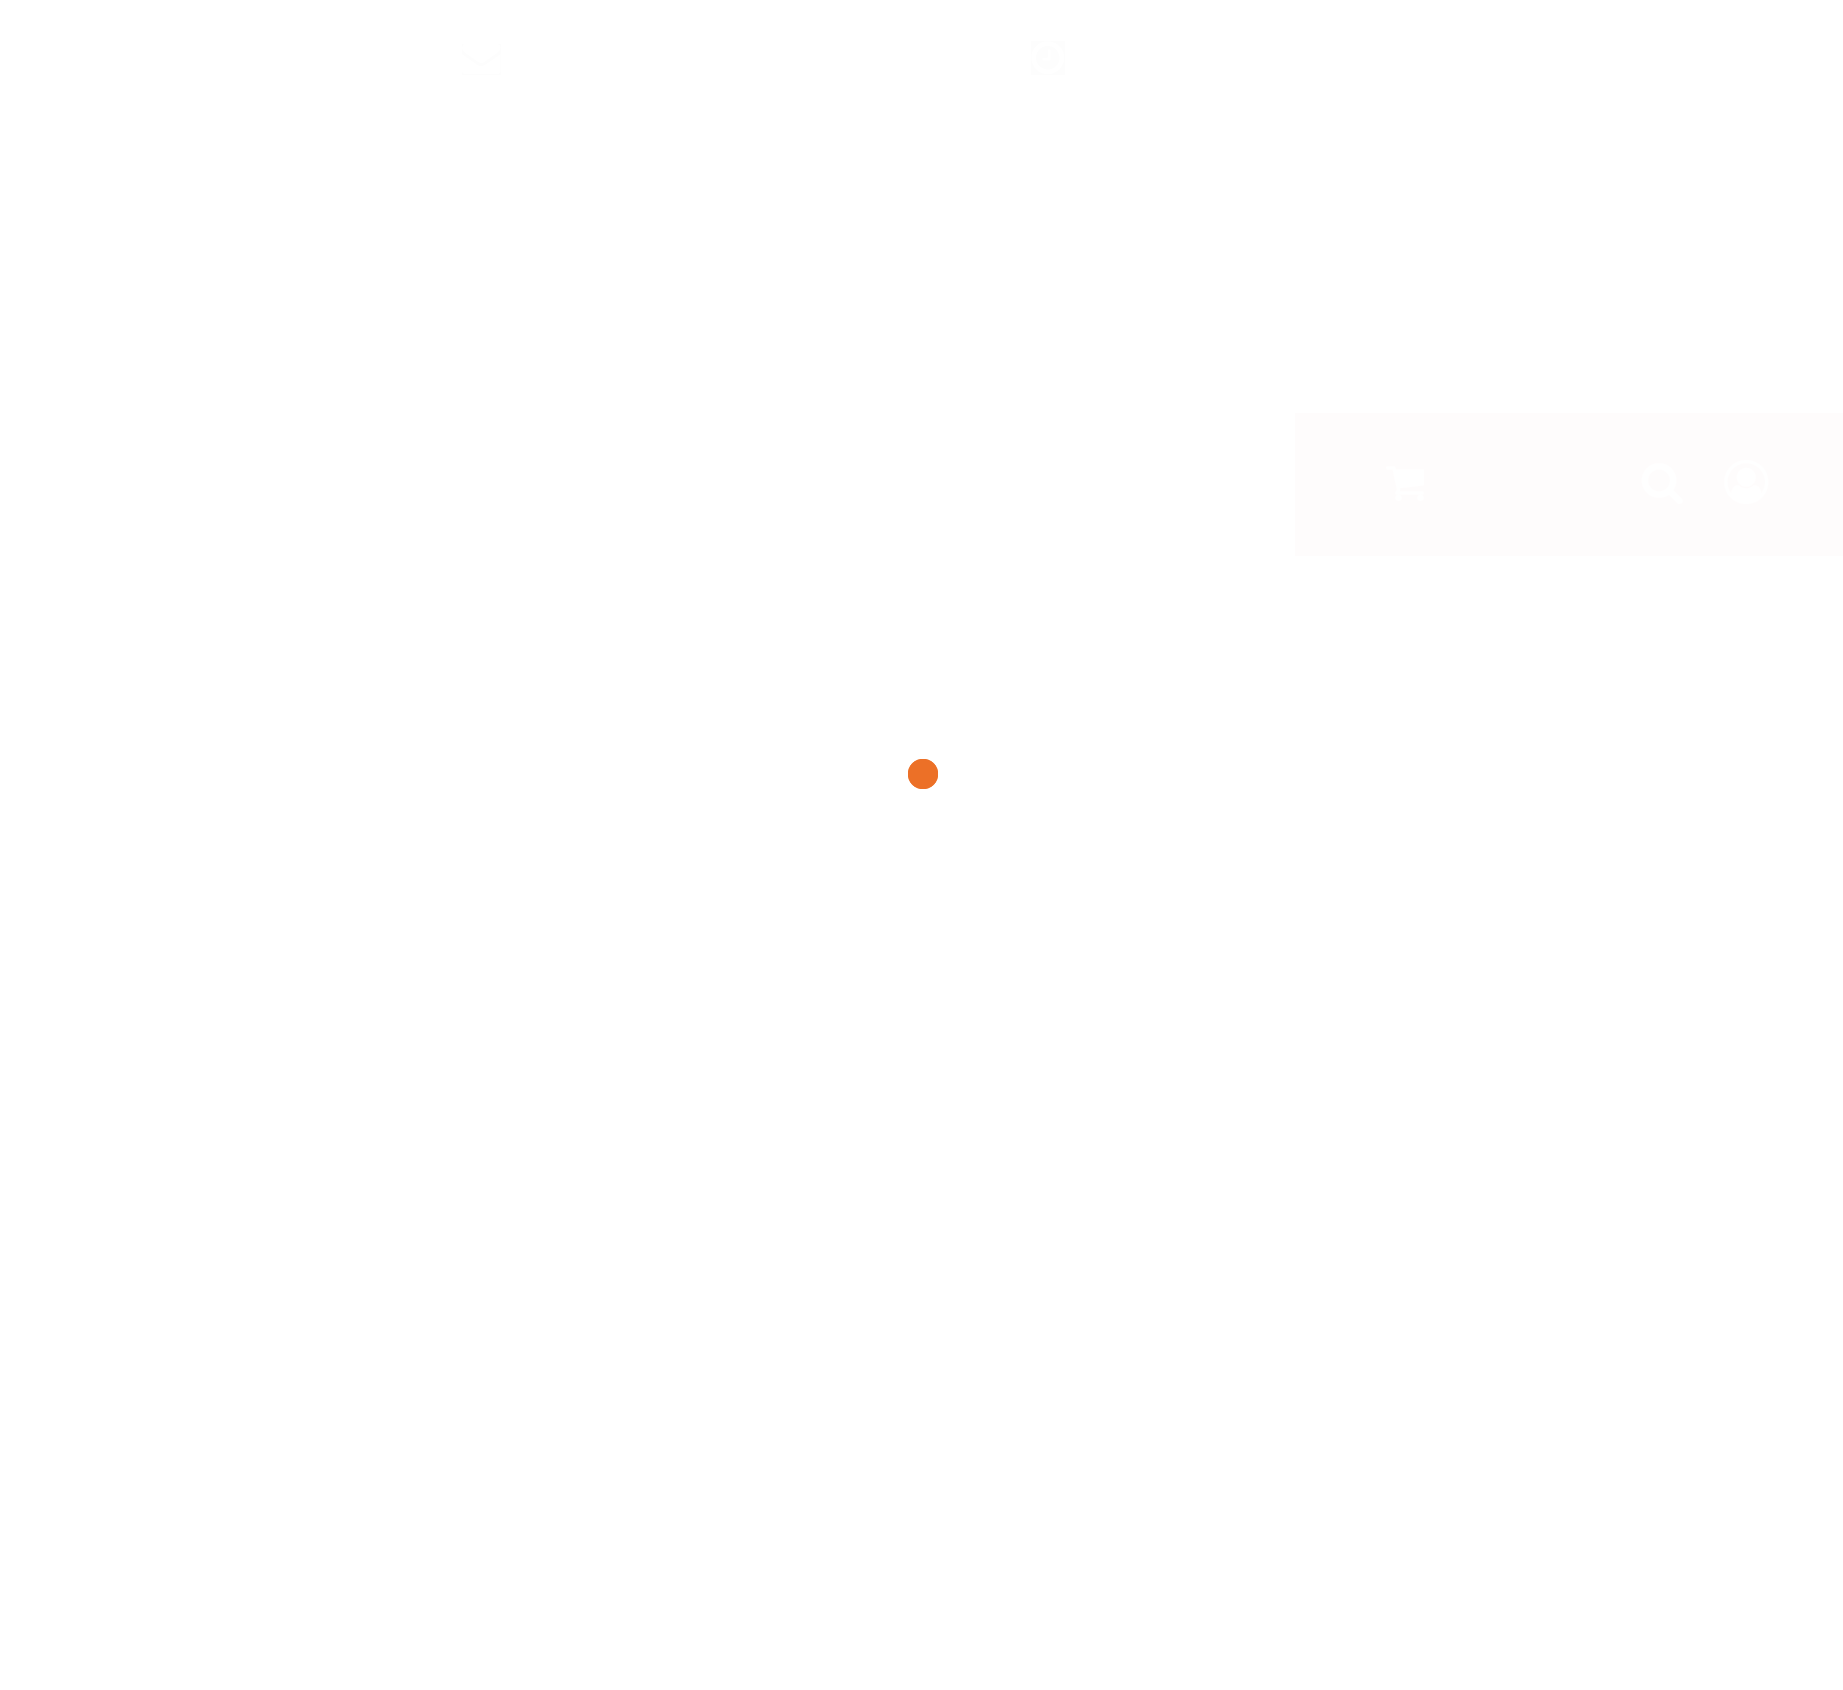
%!PS-Adobe-3.0
%%BoundingBox: 0 0 1843 1690
%%LanguageLevel: 3
%%Pages: 1
%%EndComments
%%BeginProlog
/setalpha { dup .setfillconstantalpha .setstrokeconstantalpha } def
/drawimage { 5 dict begin { /h /w /y /x /name } { exch def } forall
  gsave x y translate w h scale
  w h 8 [w 0 0 h 0 0] name (r) file false 3 colorimage grestore end } def
%%EndProlog
%%BeginSetup
<< /PageSize [1843 1690] /PageUsesTransparency true >> setpagedevice
%%EndSetup
%%Page: 1 1
0 .pushpdf14devicefilter
0 1690 translate 1 -1 scale
4 setmiterlimit
1 setgray
0 0 1843 1690 rectfill
(images/1.raw) 462 44 39 31 drawimage
(images/2.raw) 1031 41 34 34 drawimage
0.996 0.988 0.988 setrgbcolor
1295 413 548 143 rectfill
(images/3.raw) 1386 466 38 35 drawimage
(images/4.raw) 1641 463 42 41 drawimage
(images/5.raw) 1724 460 45 44 drawimage
0.925 0.443 0.157 setrgbcolor
newpath 923 774 15 0 360 arc closepath fill
0.69 setalpha
0.925 0.439 0.149 setrgbcolor
newpath 923 774 15 0 360 arc closepath fill
0.42 setalpha
newpath 923 774 15 0 360 arc closepath fill
.poppdf14devicefilter showpage
%%EOF
